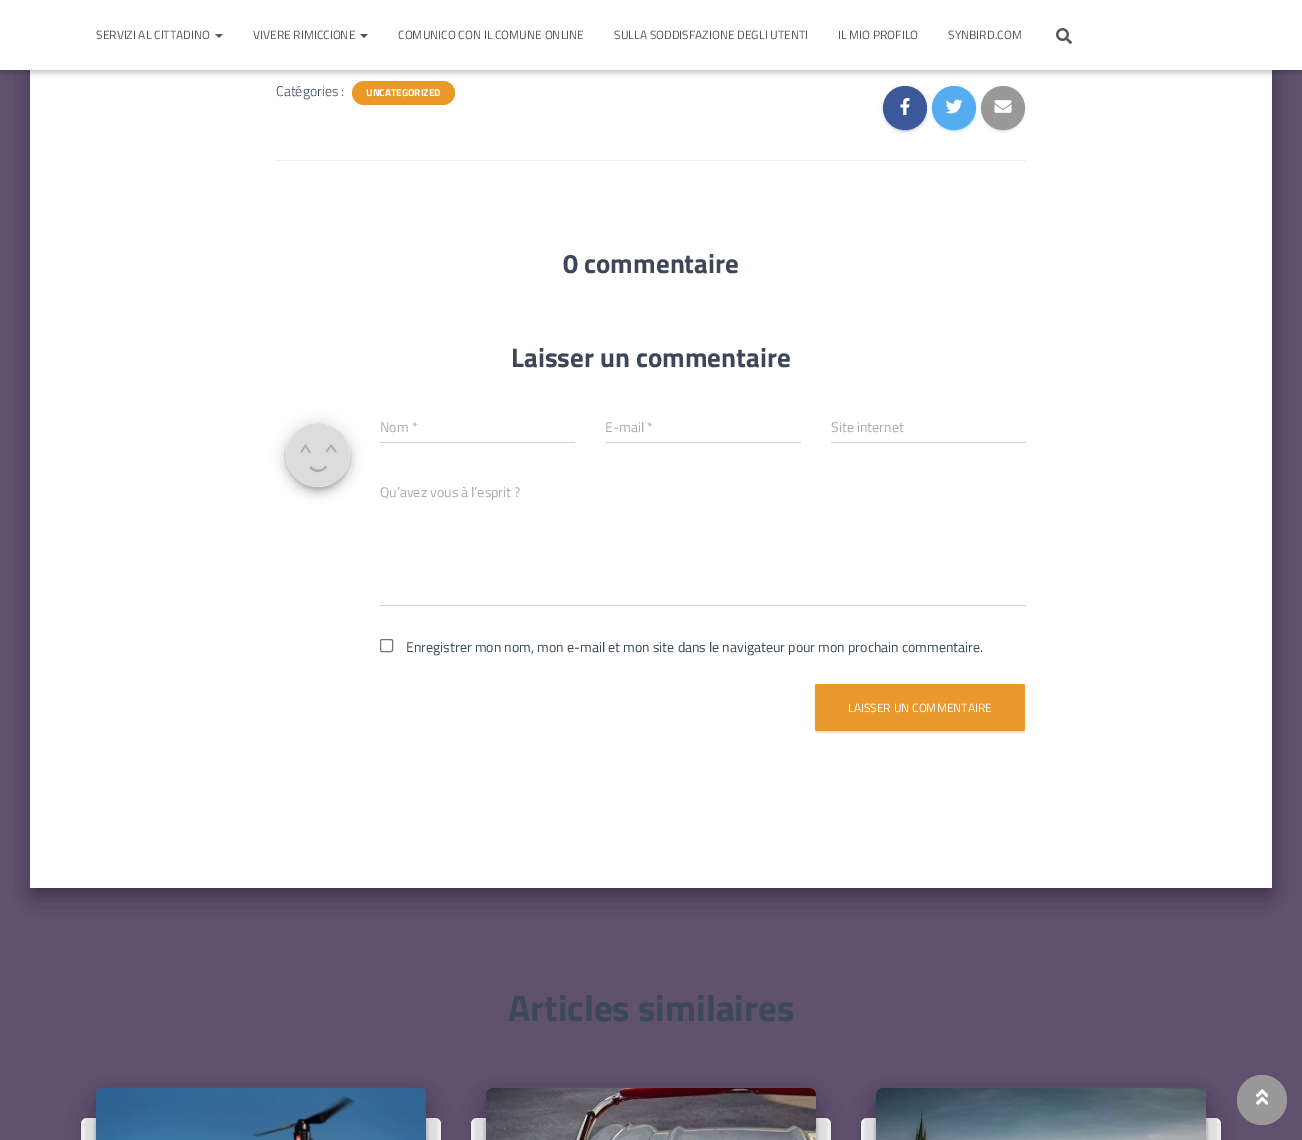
%!PS-Adobe-3.0
%%BoundingBox: 0 0 1302 1140
%%LanguageLevel: 3
%%Pages: 1
%%EndComments
%%BeginProlog
/setalpha { dup .setfillconstantalpha .setstrokeconstantalpha } def
/rrect { 5 dict begin { /r /h /w /y /x } { exch def } forall
  x r add y moveto x w add y 2 copy h add r arct x w add y h add x 1 index r arct
  x y h add x y r arct x y 2 copy exch w add exch r arct closepath end } def
/softshadow { 12 dict begin { /a /b /q /h /w /y /x } { exch def } forall gsave /was 0 def
  9 -2 -9 { dup b mul 4 div /e exch def 1 sub .425 mul 2.718 exch exp 1 add a .99 .min exch div /now exch def
    1 1 now sub 1 was sub div sub setalpha /was now def
    w h .min e 2 mul add 0 gt { x e sub y e sub w e 2 mul add h e 2 mul add
      q e add b .6 mul add w h .min 2 div e add .min 0 .max rrect fill } if } for grestore end } def
/drawimage { 5 dict begin { /h /w /y /x /name } { exch def } forall
  gsave x y translate w h scale
  w h 8 [w 0 0 h 0 0] name (r) file false 3 colorimage grestore end } def
%%EndProlog
%%BeginSetup
<< /PageSize [1302 1140] /PageUsesTransparency true >> setpagedevice
%%EndSetup
%%Page: 1 1
0 .pushpdf14devicefilter
0 1140 translate 1 -1 scale
4 setmiterlimit
0.376 0.318 0.435 setrgbcolor
0 0 1302 1140 rectfill
0 setgray
35 -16 1232 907 1 5 0.2 softshadow
25 -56 1252 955 11 15 0.12 softshadow
28 -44 1246 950 8 12 0.14 softshadow
1 setgray
30 70 1242 818 rectfill
0 setgray
2 6 1298 66 0 2.5 0.1 softshadow
0.914 0.6 0.161 setrgbcolor
352 81 103 24 12 rrect fill
0.231 0.349 0.596 setrgbcolor
883 87 44 44 22 2.5 0.12 softshadow
885 91 40 40 20 0.5 0.2 softshadow
883 88 44 44 22 1 0.14 softshadow
newpath 905 108 22 0 360 arc closepath fill
0.333 0.675 0.933 setrgbcolor
932 87 44 44 22 2.5 0.12 softshadow
934 91 40 40 20 0.5 0.2 softshadow
932 88 44 44 22 1 0.14 softshadow
newpath 954 108 22 0 360 arc closepath fill
0.6 setgray
981 87 44 44 22 2.5 0.12 softshadow
983 91 40 40 20 0.5 0.2 softshadow
981 88 44 44 22 1 0.14 softshadow
newpath 1003 108 22 0 360 arc closepath fill
0 setgray
0 1 1302 70 0 5 0.12 softshadow
6 7 1290 58 0 5 0.42 softshadow
1 setgray
0 0 1302 70 rectfill
0.333 setgray
newpath 215 34 moveto 223 34 lineto 219 38 lineto closepath fill
newpath 360 34 moveto 368 34 lineto 364 38 lineto closepath fill
(images/1.raw) 1056 28 16 16 drawimage
(images/2.raw) 900 98 10 17 drawimage
(images/3.raw) 945 99 18 15 drawimage
(images/4.raw) 994 100 18 13 drawimage
0.933 setgray
276 160 750 1 rectfill
0 setgray
287 427 62 62 31 2.5 0.2 softshadow
286 424 64 64 32 9 0.12 softshadow
286 429 64 64 32 5 0.14 softshadow
(images/5.raw) 286 423 64 64 drawimage
0.824 setgray
380 442 195 1 rectfill
605 442 196 1 rectfill
831 442 195 1 rectfill
380 605 646 1 rectfill
0.463 setgray
380.5 639.5 12 12 1.5 rrect stroke
0.914 0.6 0.161 setrgbcolor
815 685 210 47 2 2.5 0.12 softshadow
817 689 206 43 0 0.5 0.2 softshadow
815 686 210 47 2 1 0.14 softshadow
815 684 210 47 2 rrect fill
0 setgray
81 1119 360 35 6 2.5 0.12 softshadow
81 1120 360 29 6 1 0.14 softshadow
1 setgray
81 1118 360 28 6 rrect fill
0 setgray
101 1101 320 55 1 5 0.2 softshadow
96 1092 330 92 6 12.5 0.12 softshadow
108 1116 306 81 0 19 0.56 softshadow
(images/6.raw) 96 1088 330 52 drawimage
471 1119 360 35 6 2.5 0.12 softshadow
471 1120 360 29 6 1 0.14 softshadow
1 setgray
471 1118 360 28 6 rrect fill
0 setgray
491 1101 320 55 1 5 0.2 softshadow
486 1092 330 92 6 12.5 0.12 softshadow
498 1116 306 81 0 19 0.56 softshadow
(images/7.raw) 486 1088 330 52 drawimage
861 1119 360 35 6 2.5 0.12 softshadow
861 1120 360 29 6 1 0.14 softshadow
1 setgray
861 1118 360 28 6 rrect fill
0 setgray
881 1101 320 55 1 5 0.2 softshadow
876 1092 330 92 6 12.5 0.12 softshadow
888 1116 306 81 0 19 0.56 softshadow
(images/8.raw) 876 1088 330 52 drawimage
0.6 setgray
newpath 1262 1100 25 0 360 arc closepath fill
(images/9.raw) 1256 1089 12 16 drawimage
/TitilliumWeb-Regular [12 0 0 -12 0 0] selectfont
0.333 setgray
96 39 moveto (SERVIZI AL CITTADINO) show
253 39 moveto (VIVERE RIMICCIONE) show
398 39 moveto (COMUNICO CON IL COMUNE ONLINE) show
614 39 moveto (SULLA SODDISFAZIONE DEGLI UTENTI) show
838 39 moveto (IL MIO PROFILO) show
948 39 moveto (SYNBIRD.COM) show
/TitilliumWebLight-Light [14 0 0 -14 0 0] selectfont
0.235 0.282 0.345 setrgbcolor
276 96 moveto (Catégories :) show
/TitilliumWeb-Bold [10 0 0 -10 0 0] selectfont
1 setgray
366 96 moveto (UNCATEGORIZED) show
/TitilliumWeb-Bold [27 0 0 -27 0 0] selectfont
0.235 0.282 0.345 setrgbcolor
563 273 moveto (0 commentaire) show
511 367 moveto (Laisser un commentaire) show
/TitilliumWeb-Regular [14 0 0 -14 0 0] selectfont
0.667 setgray
380 432 moveto (Nom *) show
605 432 moveto (E-mail *) show
831 432 moveto (Site internet) show
380 497 moveto (Qu’avez vous à l’esprit ?) show
0.235 0.282 0.345 setrgbcolor
406 652 moveto (Enregistrer mon nom, mon e-mail et mon site dans le navigateur pour mon prochain commentaire.) show
/TitilliumWeb-Regular [12 0 0 -12 0 0] selectfont
1 setgray
848 712 moveto (LAISSER UN COMMENTAIRE) show
/TitilliumWeb-Bold [37 0 0 -37 0 0] selectfont
0.235 0.282 0.345 setrgbcolor
508 1021 moveto (Articles similaires) show
.poppdf14devicefilter showpage
%%EOF
